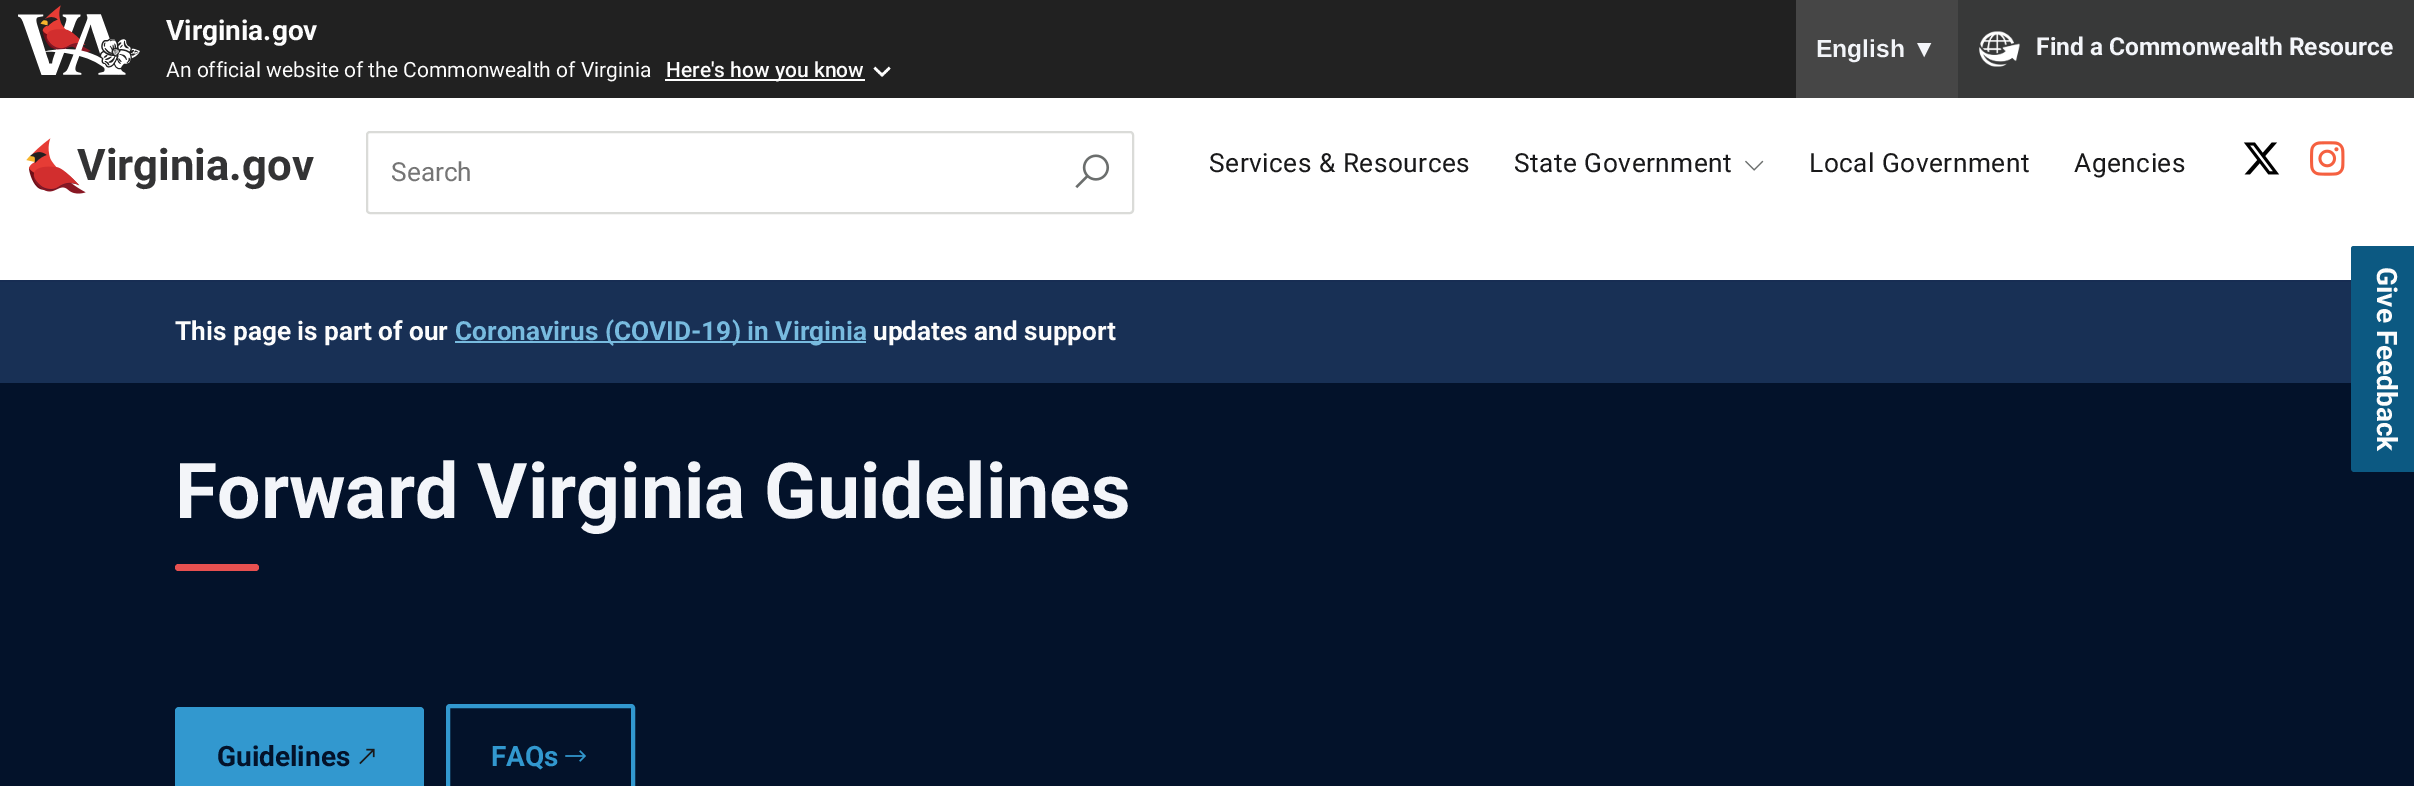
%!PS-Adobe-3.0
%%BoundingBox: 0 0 2414 786
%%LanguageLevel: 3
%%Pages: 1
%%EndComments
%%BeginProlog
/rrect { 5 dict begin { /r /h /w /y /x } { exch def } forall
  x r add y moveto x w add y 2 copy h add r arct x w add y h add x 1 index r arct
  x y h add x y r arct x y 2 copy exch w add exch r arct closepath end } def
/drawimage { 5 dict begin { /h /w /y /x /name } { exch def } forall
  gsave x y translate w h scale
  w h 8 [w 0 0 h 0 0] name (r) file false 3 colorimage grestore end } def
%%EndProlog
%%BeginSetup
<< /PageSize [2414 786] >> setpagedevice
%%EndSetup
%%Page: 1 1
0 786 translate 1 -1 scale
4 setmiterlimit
0.094 0.188 0.333 setrgbcolor
0 0 2414 786 rectfill
0.129 setgray
0 0 1796 98 rectfill
(images/1.raw) 18 5 122 70 drawimage
1 setgray
665 79 200 2 rectfill
(images/2.raw) 873 66 18 11 drawimage
0.275 setgray
1796 0 162 98 rectfill
0.22 0.224 0.224 setrgbcolor
1958 0 456 98 rectfill
(images/3.raw) 1979 31 41 36 drawimage
0.09 0.176 0.325 setrgbcolor
0 280 2351 2 rectfill
1 setgray
0 98 2414 182 rectfill
(images/4.raw) 26 138 60 56 drawimage
0.855 0.859 0.847 setrgbcolor
2 setlinewidth
367 132 766 81 3 rrect stroke
(images/5.raw) 1075 154 35 35 drawimage
(images/6.raw) 1745 160 19 11 drawimage
(images/7.raw) 2243 142 37 33 drawimage
(images/8.raw) 2310 141 35 35 drawimage
0.471 0.733 0.875 setrgbcolor
455 341 411 2 rectfill
0.012 0.071 0.165 setrgbcolor
0 383 2414 403 rectfill
0.047 0.349 0.51 setrgbcolor
newpath 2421 249 moveto 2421 468 lineto 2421 470 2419 472 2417 472 curveto 2354 472 lineto 2352 472 2351 470 2351 468 curveto 2351 249 lineto 2351 247 2352 246 2354 246 curveto 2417 246 lineto 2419 246 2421 247 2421 249 curveto closepath fill
0.906 0.314 0.314 setrgbcolor
175 564 84 7 3.5 rrect fill
0.196 0.596 0.812 setrgbcolor
175 707 249 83 4 rrect fill
(images/9.raw) 359 748 16 17 drawimage
4 setlinewidth
448 706 185 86 2 rrect stroke
(images/10.raw) 565 750 21 12 drawimage
/Roboto-Bold [28 0 0 -28 0 0] selectfont
0.988 setgray
166 40 moveto (Virginia.gov) show
/Roboto-Regular [21 0 0 -21 0 0] selectfont
166 77 moveto (An official website of the Commonwealth of Virginia) show
/Roboto-Medium [21 0 0 -21 0 0] selectfont
666 77 moveto (Here's how you know) show
/LiberationSans-Bold [24.6 0 0 -24.6 0 0] selectfont
0.953 0.961 0.976 setrgbcolor
1816 57 moveto (English ▼) show
/Roboto-Bold [24.6 0 0 -24.6 0 0] selectfont
2036 55 moveto (Find a Commonwealth Resource) show
/Roboto-Bold [43.75 0 0 -43.75 0 0] selectfont
0.2 0.2 0.204 setrgbcolor
77 180 moveto (Virginia.gov) show
/Roboto-Regular [26.25 0 0 -26.25 0 0] selectfont
0.459 setgray
391 181 moveto (Search) show
0.098 0.098 0.102 setrgbcolor
1209 172 moveto 0.5 0 (Services & Resources) ashow
1514 172 moveto 0.5 0 (State Government) ashow
1809 172 moveto 0.5 0 (Local Government) ashow
2074 172 moveto 0.5 0 (Agencies) ashow
/Roboto-Bold [26.25 0 0 -26.25 0 0] selectfont
0.988 setgray
175 340 moveto (This page is part of our) show
0.471 0.733 0.875 setrgbcolor
455 340 moveto (Coronavirus \(COVID-19\) in Virginia) show
0.988 setgray
873 340 moveto (updates and support) show
/Roboto-Bold [28 0 0 -28 0 0] selectfont
gsave 2377 267 translate 90 rotate 0 0 moveto (Give Feedback) show grestore
/Roboto-Bold [77 0 0 -77 0 0] selectfont
0.953 0.961 0.976 setrgbcolor
175 518 moveto (Forward Virginia Guidelines) show
/Roboto-Bold [28 0 0 -28 0 0] selectfont
0.012 0.071 0.165 setrgbcolor
217 766 moveto (Guidelines) show
0.196 0.596 0.812 setrgbcolor
491 766 moveto (FAQs) show
showpage
%%EOF
